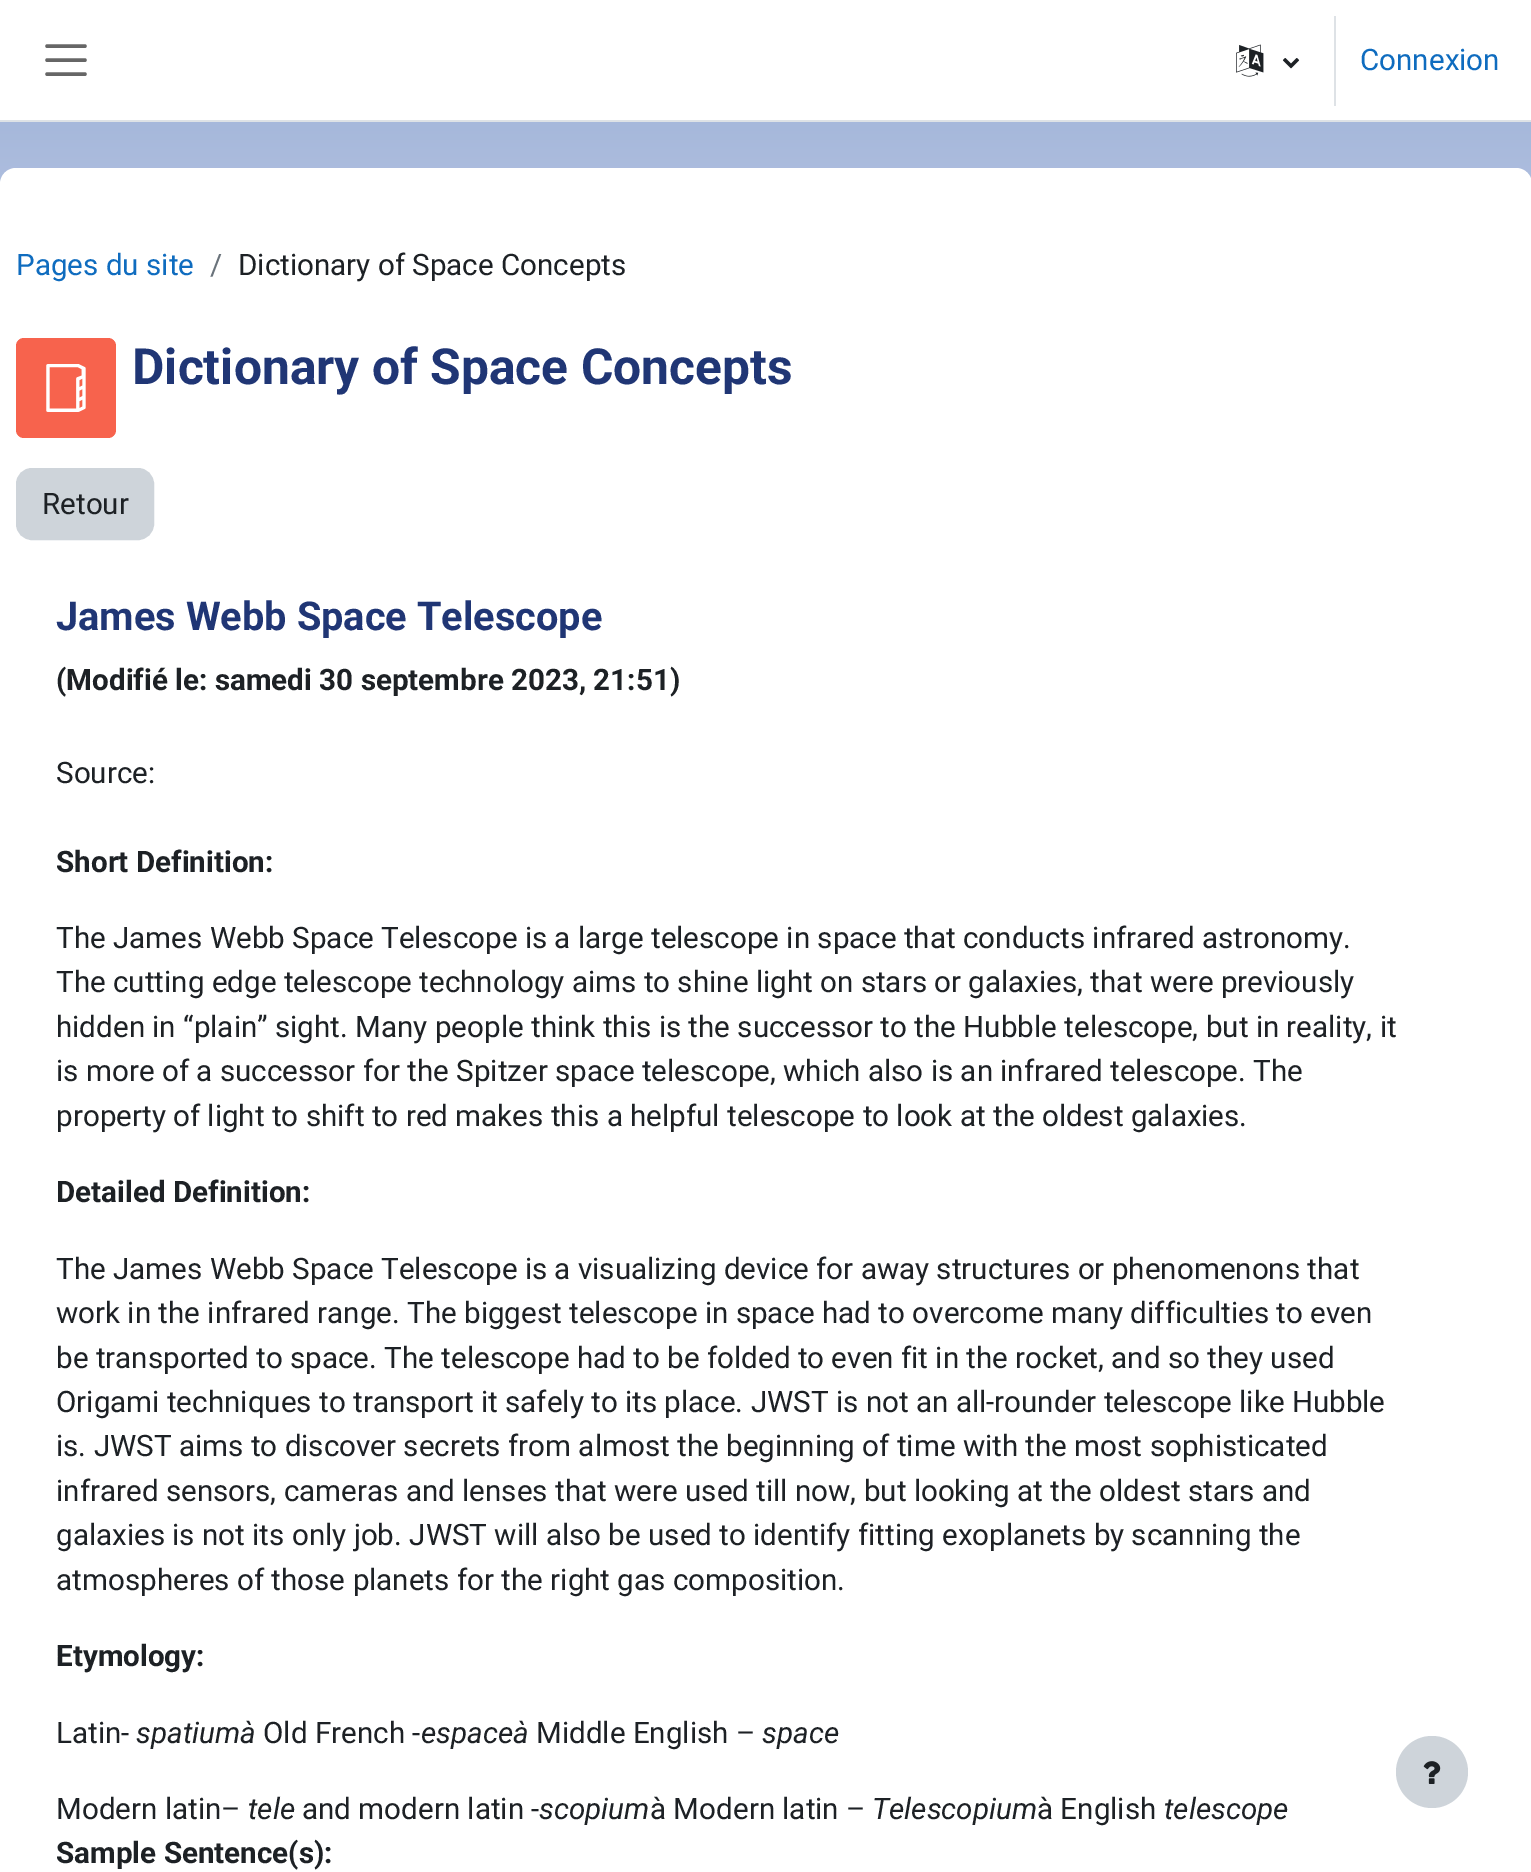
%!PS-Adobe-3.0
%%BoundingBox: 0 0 1531 1872
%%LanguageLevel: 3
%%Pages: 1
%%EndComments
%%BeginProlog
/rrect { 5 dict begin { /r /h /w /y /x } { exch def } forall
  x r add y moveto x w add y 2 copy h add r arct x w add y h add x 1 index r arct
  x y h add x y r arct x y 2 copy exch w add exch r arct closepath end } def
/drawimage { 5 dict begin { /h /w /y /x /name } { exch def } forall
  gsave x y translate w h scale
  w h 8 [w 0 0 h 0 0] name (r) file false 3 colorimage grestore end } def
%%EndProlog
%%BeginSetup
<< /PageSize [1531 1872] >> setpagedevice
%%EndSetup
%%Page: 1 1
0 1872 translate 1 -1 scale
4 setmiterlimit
1 setgray
0 0 1531 1872 rectfill
gsave newpath 0 122 moveto 1531 122 lineto 1531 184 lineto 0 184 lineto closepath clip newpath
<< /ShadingType 2 /ColorSpace /DeviceRGB /Coords [766 1872 766 0] /Extend [true true] /Function << /FunctionType 3 /Domain [0 1] /Functions [<< /FunctionType 2 /Domain [0 1] /C0 [1 0.898 0.761] /C1 [0.902 0.929 0.969] /N 1 >> << /FunctionType 2 /Domain [0 1] /C0 [0.902 0.929 0.969] /C1 [0.604 0.682 0.839] /N 1 >>] /Bounds [0.6] /Encode [0 1 0 1] >> >> shfill grestore
0.871 0.886 0.902 setrgbcolor
0 120 1531 2 rectfill
0.4 setgray
3.5 setlinewidth
1 setlinecap
newpath 47 46 moveto 85 46 lineto 47 60 moveto 85 60 lineto 47 74 moveto 85 74 lineto stroke
(images/1.raw) 1236 44 28 33 drawimage
(images/2.raw) 1282 58 18 11 drawimage
0.871 0.886 0.902 setrgbcolor
1334 16 2 90 rectfill
1 setgray
0 168 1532 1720 16 rrect fill
0.969 0.388 0.302 setrgbcolor
16 338 100 100 8 rrect fill
(images/3.raw) 46 364 40 48 drawimage
0.808 0.831 0.855 setrgbcolor
17 469 136 70 15 rrect gsave fill grestore
2 setlinewidth
0 setlinecap
stroke
newpath 1432 1772 36 0 360 arc closepath fill
(images/4.raw) 1423 1761 18 23 drawimage
/Roboto-Regular [29.6 0 0 -29.6 0 0] selectfont
0.059 0.424 0.749 setrgbcolor
1360 70 moveto (Connexion) show
16 275 moveto (Pages du site) show
0.416 0.451 0.482 setrgbcolor
210 275 moveto (/) show
0.114 0.129 0.145 setrgbcolor
238 275 moveto (Dictionary of Space Concepts) show
/Roboto-Bold [49.8 0 0 -49.8 0 0] selectfont
0.125 0.212 0.459 setrgbcolor
132 384 moveto (Dictionary of Space Concepts) show
/Roboto-Regular [29.6 0 0 -29.6 0 0] selectfont
0.114 0.129 0.145 setrgbcolor
42 514 moveto (Retour) show
/Roboto-Bold [39.75 0 0 -39.75 0 0] selectfont
0.125 0.212 0.459 setrgbcolor
56 630 moveto (James Webb Space Telescope) show
/Roboto-Bold [29.6 0 0 -29.6 0 0] selectfont
0.114 0.129 0.145 setrgbcolor
56 690 moveto (\(Modifié le: samedi 30 septembre 2023, 21:51\)) show
/Roboto-Regular [29.6 0 0 -29.6 0 0] selectfont
56 783 moveto (Source:) show
/Roboto-Bold [29.6 0 0 -29.6 0 0] selectfont
56 872 moveto (Short Definition:) show
/Roboto-Regular [29.6 0 0 -29.6 0 0] selectfont
56 948 moveto (The James Webb Space Telescope is a large telescope in space that conducts infrared astronomy.) show
56 992 moveto (The cutting edge telescope technology aims to shine light on stars or galaxies, that were previously) show
56 1037 moveto (hidden in “plain” sight. Many people think this is the successor to the Hubble telescope, but in reality, it) show
56 1081 moveto (is more of a successor for the Spitzer space telescope, which also is an infrared telescope. The) show
56 1126 moveto (property of light to shift to red makes this a helpful telescope to look at the oldest galaxies.) show
/Roboto-Bold [29.6 0 0 -29.6 0 0] selectfont
56 1202 moveto (Detailed Definition:) show
/Roboto-Regular [29.6 0 0 -29.6 0 0] selectfont
56 1279 moveto (The James Webb Space Telescope is a visualizing device for away structures or phenomenons that) show
56 1323 moveto (work in the infrared range. The biggest telescope in space had to overcome many difficulties to even) show
56 1368 moveto (be transported to space. The telescope had to be folded to even fit in the rocket, and so they used) show
56 1412 moveto (Origami techniques to transport it safely to its place. JWST is not an all-rounder telescope like Hubble) show
56 1456 moveto (is. JWST aims to discover secrets from almost the beginning of time with the most sophisticated) show
56 1501 moveto (infrared sensors, cameras and lenses that were used till now, but looking at the oldest stars and) show
56 1545 moveto (galaxies is not its only job. JWST will also be used to identify fitting exoplanets by scanning the) show
56 1590 moveto (atmospheres of those planets for the right gas composition.) show
/Roboto-Bold [29.6 0 0 -29.6 0 0] selectfont
56 1666 moveto (Etymology:) show
/Roboto-Regular [29.6 0 0 -29.6 0 0] selectfont
56 1743 moveto (Latin-) show
/Roboto-Italic [29.6 0 0 -29.6 0 0] selectfont
136 1743 moveto (spatiumà) show
/Roboto-Regular [29.6 0 0 -29.6 0 0] selectfont
263 1743 moveto (Old French -) show
/Roboto-Italic [29.6 0 0 -29.6 0 0] selectfont
421 1743 moveto (espaceà) show
/Roboto-Regular [29.6 0 0 -29.6 0 0] selectfont
536 1743 moveto (Middle English –) show
/Roboto-Italic [29.6 0 0 -29.6 0 0] selectfont
762 1743 moveto (space) show
/Roboto-Regular [29.6 0 0 -29.6 0 0] selectfont
56 1819 moveto (Modern latin–) show
/Roboto-Italic [29.6 0 0 -29.6 0 0] selectfont
248 1819 moveto (tele) show
/Roboto-Regular [29.6 0 0 -29.6 0 0] selectfont
302 1819 moveto (and modern latin -) show
/Roboto-Italic [29.6 0 0 -29.6 0 0] selectfont
539 1819 moveto (scopium) show
/Roboto-Regular [29.6 0 0 -29.6 0 0] selectfont
650 1819 moveto (à Modern latin –) show
/Roboto-Italic [29.6 0 0 -29.6 0 0] selectfont
872 1819 moveto (Telescopium) show
/Roboto-Regular [29.6 0 0 -29.6 0 0] selectfont
1037 1819 moveto (à English) show
/Roboto-Italic [29.6 0 0 -29.6 0 0] selectfont
1164 1819 moveto (telescope) show
/Roboto-Bold [29.6 0 0 -29.6 0 0] selectfont
56 1863 moveto (Sample Sentence\(s\):) show
showpage
%%EOF
